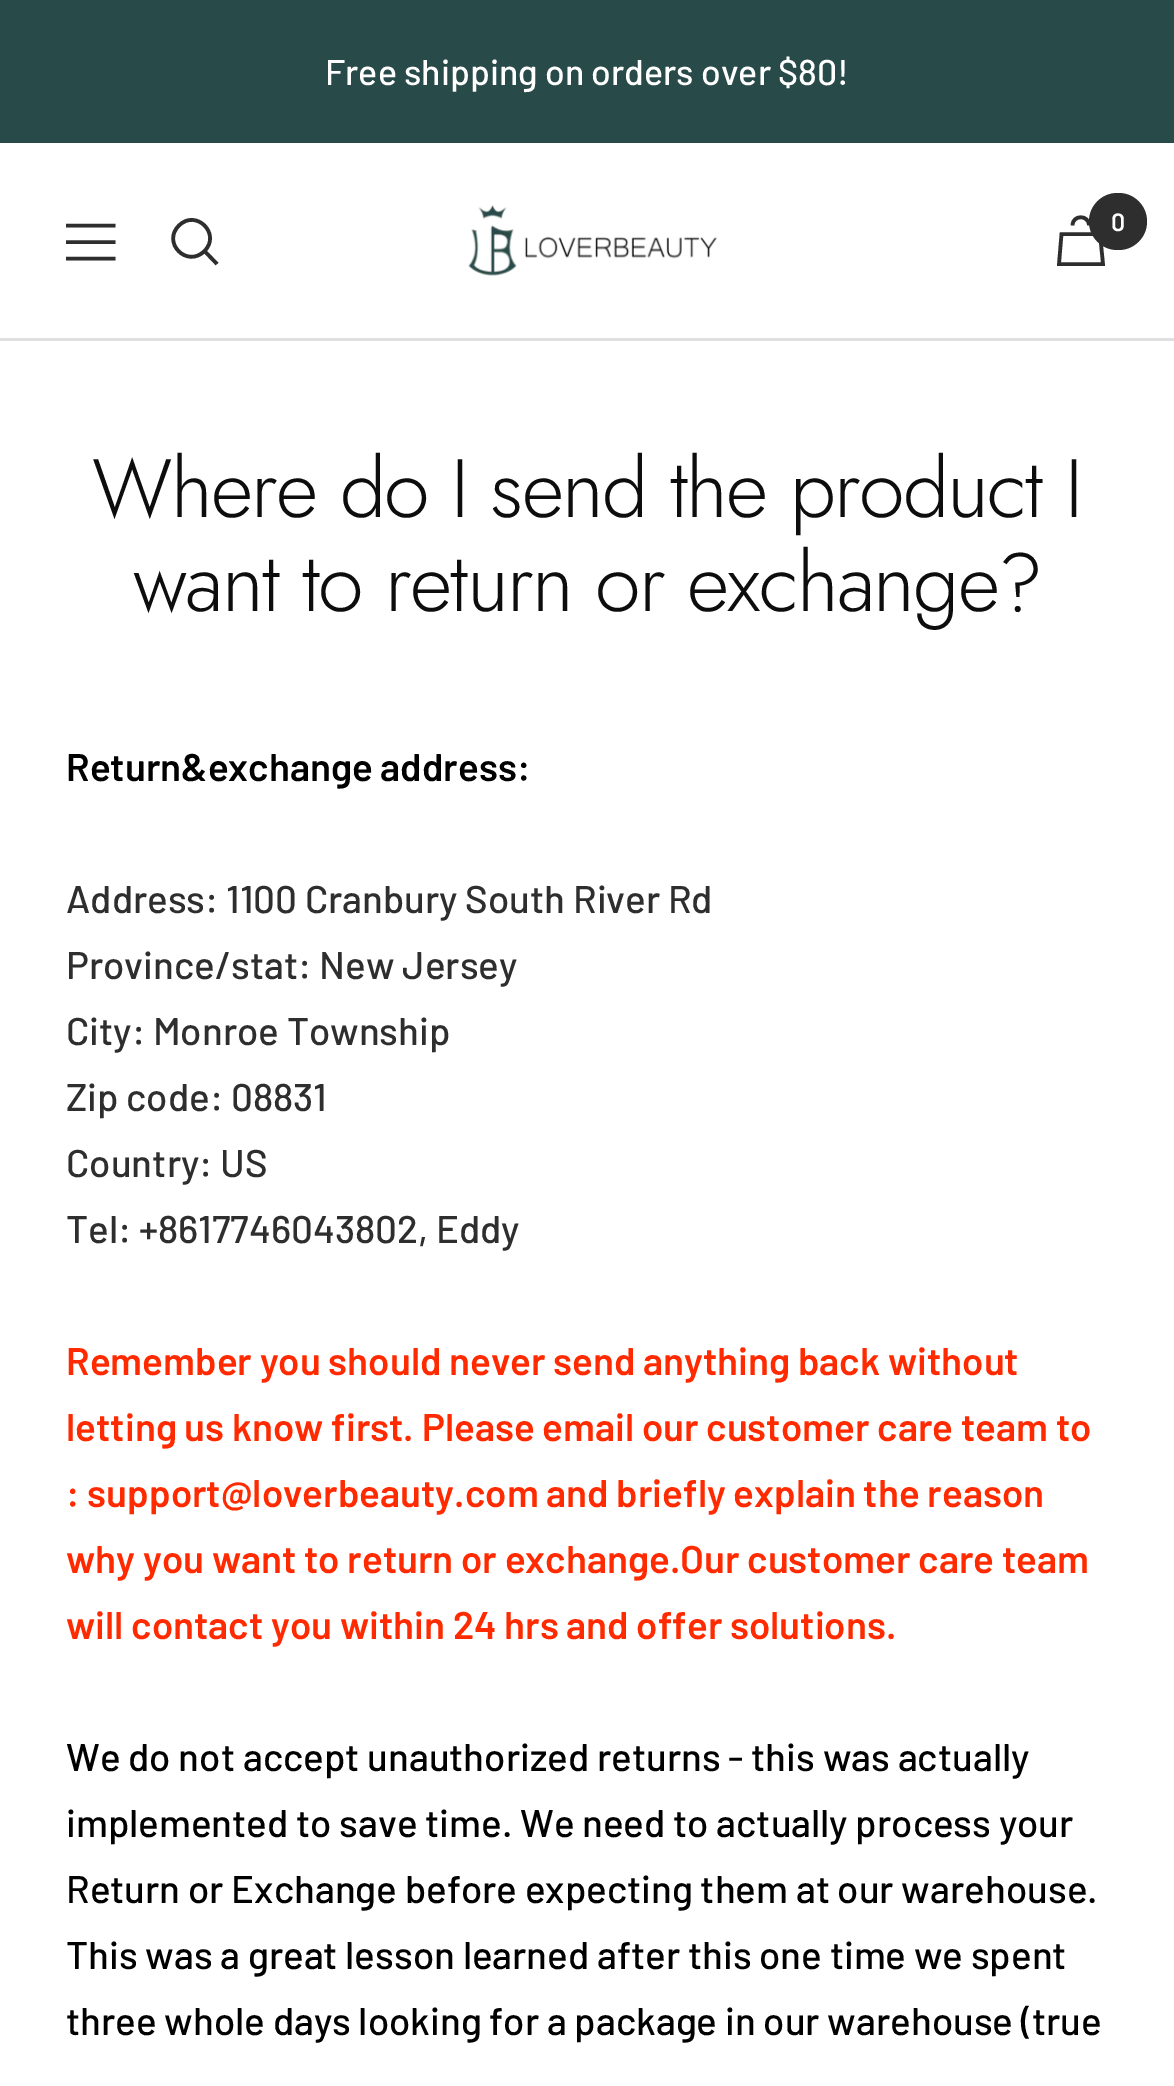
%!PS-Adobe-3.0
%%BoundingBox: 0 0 1174 2086
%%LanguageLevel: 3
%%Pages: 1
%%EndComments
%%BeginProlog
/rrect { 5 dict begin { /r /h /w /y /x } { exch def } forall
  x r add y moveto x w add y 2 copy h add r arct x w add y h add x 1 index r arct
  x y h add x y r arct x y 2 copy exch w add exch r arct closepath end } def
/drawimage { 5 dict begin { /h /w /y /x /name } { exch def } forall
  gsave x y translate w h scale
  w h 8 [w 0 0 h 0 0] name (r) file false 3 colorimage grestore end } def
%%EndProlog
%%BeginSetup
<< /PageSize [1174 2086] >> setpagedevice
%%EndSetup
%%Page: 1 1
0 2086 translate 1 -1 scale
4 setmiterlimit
1 setgray
0 0 1174 2086 rectfill
0.157 0.29 0.286 setrgbcolor
0 0 1174 143 rectfill
0.878 setgray
0 338 1174 3 rectfill
0.18 setgray
3.6 setlinewidth
newpath 66 225.5 moveto 115.5 225.5 lineto 66 258.5 moveto 115.5 258.5 lineto closepath 66 242 moveto 115.5 242 lineto closepath stroke
newpath 204.5 251 moveto 221.5 234 196 208.5 179 225.5 curveto 161.5 242.5 187 268.5 204.5 251 curveto closepath 204.5 251 moveto 217 264 lineto stroke
(images/1.raw) 468 205 249 71 drawimage
newpath 1061.5 234 moveto 1100 234 lineto 1103 264 lineto 1059 264 lineto closepath 1089 225.5 moveto 1089 214.5 1072.5 214.5 1072.5 225.5 curveto stroke
1089 193 58 57 28.5 rrect fill
/Barlow-Medium [35.75 0 0 -35.75 0 0] selectfont
1 setgray
325 85 moveto (Free shipping on orders over $80!) show
/Barlow-SemiBold [25 0 0 -25 0 0] selectfont
1111 231 moveto (0) show
/Jost-Light [82.5 0 0 -82.5 0 0] selectfont
0.051 setgray
92 517 moveto -1.65 0 (Where do I send the product I) ashow
133 611 moveto -1.65 0 (want to return or exchange?) ashow
/Barlow-SemiBold [38.5 0 0 -38.5 0 0] selectfont
0 setgray
66 781 moveto (Return&exchange address:) show
/Barlow-Medium [38.5 0 0 -38.5 0 0] selectfont
0.18 setgray
66 913 moveto (Address: 1100 Cranbury South River Rd) show
66 979 moveto (Province/stat: New Jersey) show
66 1045 moveto (City: Monroe Township) show
66 1111 moveto (Zip code: 08831) show
66 1177 moveto (Country: US) show
66 1243 moveto (Tel: +8617746043802, Eddy) show
/Barlow-SemiBold [38.5 0 0 -38.5 0 0] selectfont
1 0.165 0 setrgbcolor
66 1375 moveto (Remember you should never send anything back without) show
66 1441 moveto (letting us know first. Please email our customer care team to) show
66 1507 moveto (: support@loverbeauty.com and briefly explain the reason) show
66 1573 moveto (why you want to return or exchange.Our customer care team) show
66 1639 moveto (will contact you within 24 hrs and offer solutions.) show
/Barlow-Medium [38.5 0 0 -38.5 0 0] selectfont
0 setgray
66 1771 moveto (We do not accept unauthorized returns - this was actually) show
66 1837 moveto (implemented to save time. We need to actually process your) show
66 1903 moveto (Return or Exchange before expecting them at our warehouse.) show
66 1969 moveto (This was a great lesson learned after this one time we spent) show
66 2035 moveto (three whole days looking for a package in our warehouse \(true) show
showpage
%%EOF
